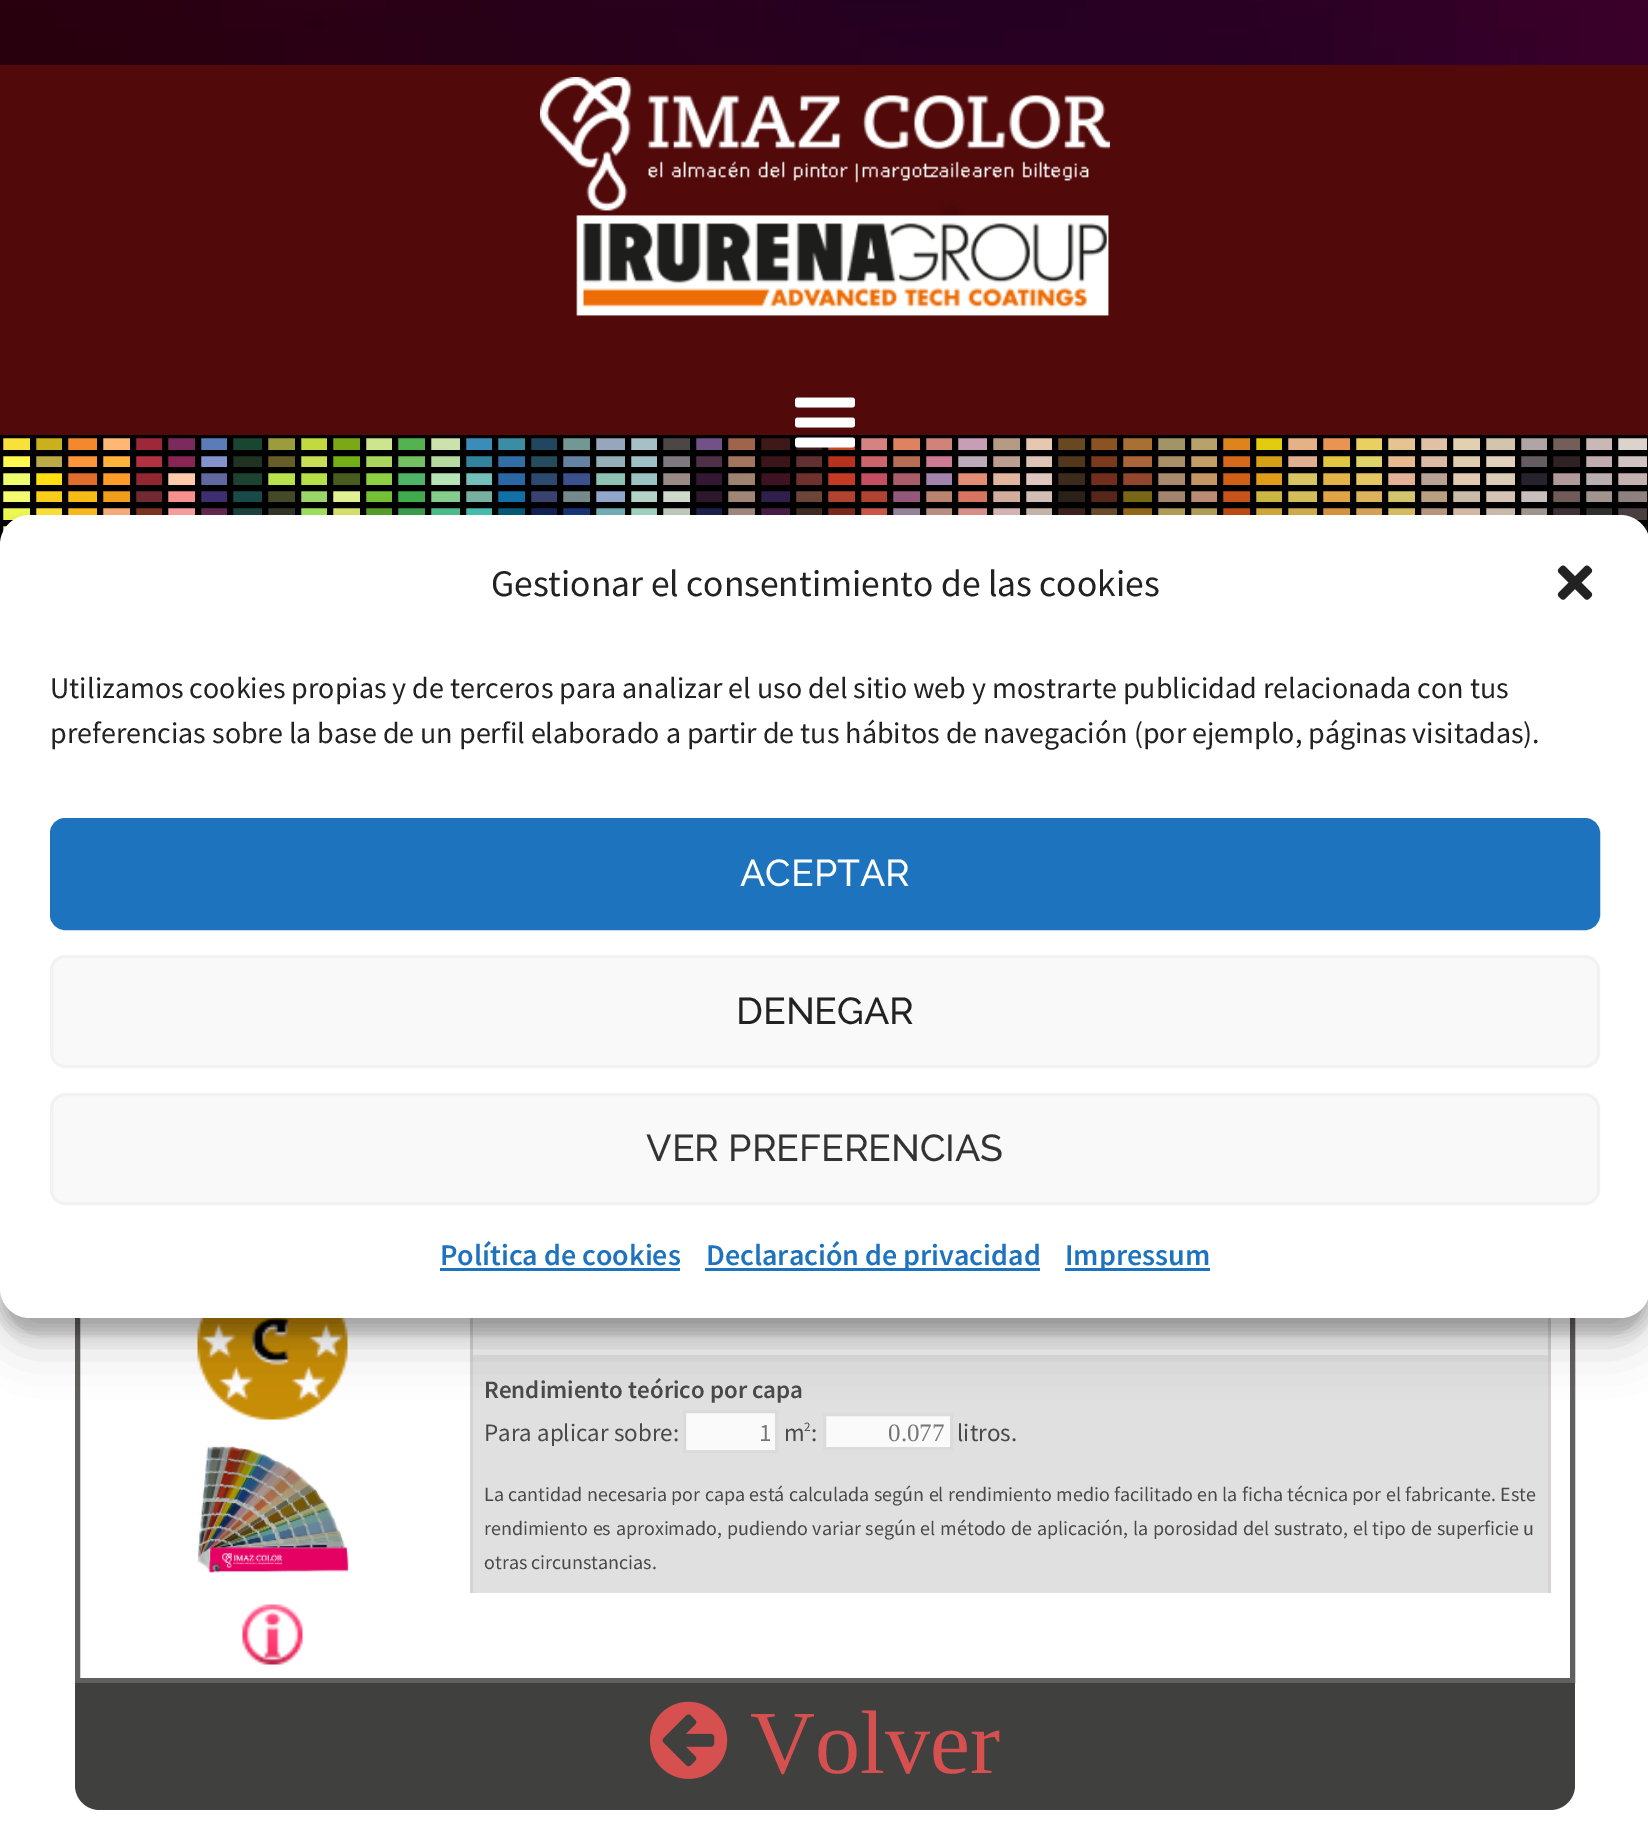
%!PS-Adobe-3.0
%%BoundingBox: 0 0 1648 1832
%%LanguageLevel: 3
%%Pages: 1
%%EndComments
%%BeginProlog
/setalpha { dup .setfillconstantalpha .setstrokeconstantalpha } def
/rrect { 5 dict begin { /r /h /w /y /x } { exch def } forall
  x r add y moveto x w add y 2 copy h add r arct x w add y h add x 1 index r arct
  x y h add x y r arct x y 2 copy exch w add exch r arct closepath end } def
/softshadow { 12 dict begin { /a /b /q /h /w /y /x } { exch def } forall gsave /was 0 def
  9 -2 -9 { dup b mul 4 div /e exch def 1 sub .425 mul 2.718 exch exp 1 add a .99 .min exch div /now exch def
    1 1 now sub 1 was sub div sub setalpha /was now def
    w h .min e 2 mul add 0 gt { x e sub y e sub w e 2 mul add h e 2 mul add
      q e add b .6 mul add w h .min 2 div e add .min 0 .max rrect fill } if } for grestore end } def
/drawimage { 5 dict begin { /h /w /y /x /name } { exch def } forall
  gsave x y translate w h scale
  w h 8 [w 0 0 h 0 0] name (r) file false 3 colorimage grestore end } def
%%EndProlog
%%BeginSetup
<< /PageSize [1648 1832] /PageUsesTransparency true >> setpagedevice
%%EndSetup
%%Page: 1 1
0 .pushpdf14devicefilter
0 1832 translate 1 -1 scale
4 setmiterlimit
1 setgray
0 0 1648 1832 rectfill
(images/1.raw) 0 0 1648 65 drawimage
0.941 0.992 0.333 setrgbcolor
newpath 1.5 506.5 moveto 31.5 506.5 lineto 31.5 521.5 lineto 1.5 521.5 lineto closepath gsave fill grestore
0 setgray
3 setlinewidth
stroke
1 0.898 0.224 setrgbcolor
36 508 26 7 rectfill
0 setgray
34.5 506.5 29 15 rectstroke
1 0.737 0.125 setrgbcolor
68 508 29 7 rectfill
0 setgray
66.5 506.5 32 15 rectstroke
0.992 0.69 0.478 setrgbcolor
103 508 27 7 rectfill
0 setgray
101.5 506.5 30 15 rectstroke
0.506 0.196 0.129 setrgbcolor
136 508 26 7 rectfill
0 setgray
134.5 506.5 29 15 rectstroke
0.992 0.631 0.635 setrgbcolor
168 508 27 7 rectfill
0 setgray
166.5 506.5 30 15 rectstroke
0.396 0.157 0.329 setrgbcolor
201 508 26 7 rectfill
0 setgray
199.5 506.5 29 15 rectstroke
0.106 0.267 0.243 setrgbcolor
233 508 29 7 rectfill
0 setgray
231.5 506.5 32 15 rectstroke
0.196 0.212 0.153 setrgbcolor
268 508 27 7 rectfill
0 setgray
266.5 506.5 30 15 rectstroke
0.627 0.902 0.373 setrgbcolor
301 508 26 7 rectfill
0 setgray
299.5 506.5 29 15 rectstroke
0.859 0.902 0.431 setrgbcolor
333 508 27 7 rectfill
0 setgray
331.5 506.5 30 15 rectstroke
0.349 0.627 0.165 setrgbcolor
366 508 26 7 rectfill
0 setgray
364.5 506.5 29 15 rectstroke
0.231 0.62 0.31 setrgbcolor
398 508 27 7 rectfill
0 setgray
396.5 506.5 30 15 rectstroke
0.31 0.757 0.557 setrgbcolor
431 508 29 7 rectfill
0 setgray
429.5 506.5 32 15 rectstroke
0.286 0.749 0.694 setrgbcolor
466 508 26 7 rectfill
0 setgray
464.5 506.5 29 15 rectstroke
0.02 0.361 0.478 setrgbcolor
498 508 27 7 rectfill
0 setgray
496.5 506.5 30 15 rectstroke
0.067 0.133 0.345 setrgbcolor
531 508 26 7 rectfill
0 setgray
529.5 506.5 29 15 rectstroke
0.094 0.208 0.482 setrgbcolor
563 508 27 7 rectfill
0 setgray
561.5 506.5 30 15 rectstroke
0.467 0.69 0.725 setrgbcolor
596 508 29 7 rectfill
0 setgray
594.5 506.5 32 15 rectstroke
0.639 0.839 0.765 setrgbcolor
631 508 26 7 rectfill
0 setgray
629.5 506.5 29 15 rectstroke
0.765 0.808 0.745 setrgbcolor
663 508 27 7 rectfill
0 setgray
661.5 506.5 30 15 rectstroke
0.11 0.122 0.298 setrgbcolor
696 508 26 7 rectfill
0 setgray
694.5 506.5 29 15 rectstroke
0.639 0.541 0.514 setrgbcolor
728 508 27 7 rectfill
0 setgray
726.5 506.5 30 15 rectstroke
0.286 0.11 0.278 setrgbcolor
761 508 29 7 rectfill
0 setgray
759.5 506.5 32 15 rectstroke
0.259 0.169 0.137 setrgbcolor
796 508 26 7 rectfill
0 setgray
794.5 506.5 29 15 rectstroke
0.49 0.161 0.118 setrgbcolor
828 508 27 7 rectfill
0 setgray
826.5 506.5 30 15 rectstroke
0.816 0.353 0.298 setrgbcolor
861 508 26 7 rectfill
0 setgray
859.5 506.5 29 15 rectstroke
0.596 0.525 0.612 setrgbcolor
893 508 27 7 rectfill
0 setgray
891.5 506.5 30 15 rectstroke
0.741 0.569 0.525 setrgbcolor
926 508 26 7 rectfill
0 setgray
924.5 506.5 29 15 rectstroke
0.875 0.573 0.549 setrgbcolor
958 508 29 7 rectfill
0 setgray
956.5 506.5 32 15 rectstroke
0.855 0.722 0.718 setrgbcolor
993 508 27 7 rectfill
0 setgray
991.5 506.5 30 15 rectstroke
0.8 0.722 0.678 setrgbcolor
1026 508 26 7 rectfill
0 setgray
1024.5 506.5 29 15 rectstroke
0.239 0.133 0.106 setrgbcolor
1058 508 27 7 rectfill
0 setgray
1056.5 506.5 30 15 rectstroke
0.424 0.31 0.176 setrgbcolor
1091 508 26 7 rectfill
0 setgray
1089.5 506.5 29 15 rectstroke
0.588 0.424 0.094 setrgbcolor
1123 508 29 7 rectfill
0 setgray
1121.5 506.5 32 15 rectstroke
0.702 0.627 0.357 setrgbcolor
1158 508 27 7 rectfill
0 setgray
1156.5 506.5 30 15 rectstroke
0.702 0.627 0.357 setrgbcolor
1191 508 26 7 rectfill
0 setgray
1189.5 506.5 29 15 rectstroke
0.749 0.298 0.075 setrgbcolor
1223 508 27 7 rectfill
0 setgray
1221.5 506.5 30 15 rectstroke
0.831 0.667 0.235 setrgbcolor
1256 508 26 7 rectfill
0 setgray
1254.5 506.5 29 15 rectstroke
0.831 0.69 0.314 setrgbcolor
1288 508 29 7 rectfill
0 setgray
1286.5 506.5 32 15 rectstroke
0.863 0.584 0.263 setrgbcolor
1323 508 27 7 rectfill
0 setgray
1321.5 506.5 30 15 rectstroke
0.863 0.643 0.349 setrgbcolor
1356 508 26 7 rectfill
0 setgray
1354.5 506.5 29 15 rectstroke
0.851 0.761 0.396 setrgbcolor
1388 508 27 7 rectfill
0 setgray
1386.5 506.5 30 15 rectstroke
0.733 0.596 0.51 setrgbcolor
1421 508 26 7 rectfill
0 setgray
1419.5 506.5 29 15 rectstroke
0.859 0.737 0.667 setrgbcolor
1453 508 27 7 rectfill
0 setgray
1451.5 506.5 30 15 rectstroke
0.812 0.753 0.678 setrgbcolor
1486 508 29 7 rectfill
0 setgray
1484.5 506.5 32 15 rectstroke
0.635 0.6 0.573 setrgbcolor
1521 508 26 7 rectfill
0 setgray
1519.5 506.5 29 15 rectstroke
0.259 0.192 0.216 setrgbcolor
1553 508 27 7 rectfill
0 setgray
1551.5 506.5 30 15 rectstroke
0.192 0.188 0.18 setrgbcolor
1586 508 26 7 rectfill
0 setgray
1584.5 506.5 29 15 rectstroke
0.294 0.247 0.255 setrgbcolor
newpath 1616.5 506.5 moveto 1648.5 506.5 lineto 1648.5 521.5 lineto 1616.5 521.5 lineto closepath gsave fill grestore
0 setgray
stroke
0.992 0.992 0.561 setrgbcolor
3 526 4 6 rectfill
0 setgray
1.5 524.5 30 14 rectstroke
0.11 0.106 0.125 setrgbcolor
1643 526 4 6 rectfill
0 setgray
1616.5 524.5 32 14 rectstroke
1.5 541.5 30 15 rectstroke
0.388 0.373 0.373 setrgbcolor
5 setlinewidth
77.5 787.5 1495 893 rectstroke
(images/5.raw) 197 1318 151 102 drawimage
0.937 setgray
473 1318 1075 37 rectfill
0.835 0.827 0.831 setrgbcolor
1548 1318 3 275 rectfill
470 1318 3 275 rectfill
0.878 setgray
473 1355 1075 238 rectfill
0 setgray
0 530 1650 803 30 7.5 0.23 softshadow
1 0.973 0.31 setrgbcolor
newpath 1.5 454.5 moveto 31.5 454.5 lineto 31.5 468.5 lineto 1.5 468.5 lineto closepath gsave fill grestore
0 setgray
3 setlinewidth
stroke
0.737 0.667 0.275 setrgbcolor
newpath 34.5 454.5 moveto 63.5 454.5 lineto 63.5 468.5 lineto 34.5 468.5 lineto closepath gsave fill grestore
0 setgray
stroke
1 0.584 0.227 setrgbcolor
newpath 66.5 454.5 moveto 98.5 454.5 lineto 98.5 468.5 lineto 66.5 468.5 lineto closepath gsave fill grestore
0 setgray
stroke
0.996 0.702 0.235 setrgbcolor
newpath 101.5 454.5 moveto 131.5 454.5 lineto 131.5 468.5 lineto 101.5 468.5 lineto closepath gsave fill grestore
0 setgray
stroke
0.698 0.196 0.255 setrgbcolor
newpath 134.5 454.5 moveto 163.5 454.5 lineto 163.5 468.5 lineto 134.5 468.5 lineto closepath gsave fill grestore
0 setgray
stroke
0.533 0.145 0.329 setrgbcolor
newpath 166.5 454.5 moveto 196.5 454.5 lineto 196.5 468.5 lineto 166.5 468.5 lineto closepath gsave fill grestore
0 setgray
stroke
0.518 0.576 0.8 setrgbcolor
newpath 199.5 454.5 moveto 228.5 454.5 lineto 228.5 468.5 lineto 199.5 468.5 lineto closepath gsave fill grestore
0 setgray
stroke
0.125 0.196 0.133 setrgbcolor
newpath 231.5 454.5 moveto 263.5 454.5 lineto 263.5 468.5 lineto 231.5 468.5 lineto closepath gsave fill grestore
0 setgray
stroke
0.404 0.365 0.157 setrgbcolor
newpath 266.5 454.5 moveto 296.5 454.5 lineto 296.5 468.5 lineto 266.5 468.5 lineto closepath gsave fill grestore
0 setgray
stroke
0.788 0.867 0.341 setrgbcolor
newpath 299.5 454.5 moveto 328.5 454.5 lineto 328.5 468.5 lineto 299.5 468.5 lineto closepath gsave fill grestore
0 setgray
stroke
0.451 0.69 0.082 setrgbcolor
newpath 331.5 454.5 moveto 361.5 454.5 lineto 361.5 468.5 lineto 331.5 468.5 lineto closepath gsave fill grestore
0 setgray
stroke
0.667 0.839 0.365 setrgbcolor
newpath 364.5 454.5 moveto 393.5 454.5 lineto 393.5 468.5 lineto 364.5 468.5 lineto closepath gsave fill grestore
0 setgray
stroke
0.451 0.753 0.376 setrgbcolor
newpath 396.5 454.5 moveto 426.5 454.5 lineto 426.5 468.5 lineto 396.5 468.5 lineto closepath gsave fill grestore
0 setgray
stroke
0.706 0.855 0.624 setrgbcolor
newpath 429.5 454.5 moveto 461.5 454.5 lineto 461.5 468.5 lineto 429.5 468.5 lineto closepath gsave fill grestore
0 setgray
stroke
0.196 0.514 0.62 setrgbcolor
newpath 464.5 454.5 moveto 493.5 454.5 lineto 493.5 468.5 lineto 464.5 468.5 lineto closepath gsave fill grestore
0 setgray
stroke
0.192 0.431 0.647 setrgbcolor
newpath 496.5 454.5 moveto 526.5 454.5 lineto 526.5 468.5 lineto 496.5 468.5 lineto closepath gsave fill grestore
0 setgray
stroke
0.145 0.298 0.365 setrgbcolor
newpath 529.5 454.5 moveto 558.5 454.5 lineto 558.5 468.5 lineto 529.5 468.5 lineto closepath gsave fill grestore
0 setgray
stroke
0.392 0.514 0.635 setrgbcolor
newpath 561.5 454.5 moveto 591.5 454.5 lineto 591.5 468.5 lineto 561.5 468.5 lineto closepath gsave fill grestore
0 setgray
stroke
0.58 0.686 0.722 setrgbcolor
newpath 594.5 454.5 moveto 626.5 454.5 lineto 626.5 468.5 lineto 594.5 468.5 lineto closepath gsave fill grestore
0 setgray
stroke
0.624 0.753 0.773 setrgbcolor
newpath 629.5 454.5 moveto 658.5 454.5 lineto 658.5 468.5 lineto 629.5 468.5 lineto closepath gsave fill grestore
0 setgray
stroke
0.498 0.471 0.498 setrgbcolor
newpath 661.5 454.5 moveto 691.5 454.5 lineto 691.5 468.5 lineto 661.5 468.5 lineto closepath gsave fill grestore
0 setgray
stroke
0.314 0.188 0.278 setrgbcolor
newpath 694.5 454.5 moveto 723.5 454.5 lineto 723.5 468.5 lineto 694.5 468.5 lineto closepath gsave fill grestore
0 setgray
stroke
0.639 0.459 0.369 setrgbcolor
newpath 726.5 454.5 moveto 756.5 454.5 lineto 756.5 468.5 lineto 726.5 468.5 lineto closepath gsave fill grestore
0 setgray
stroke
0.235 0.078 0.11 setrgbcolor
newpath 759.5 454.5 moveto 791.5 454.5 lineto 791.5 468.5 lineto 759.5 468.5 lineto closepath gsave fill grestore
0 setgray
stroke
0.384 0.188 0.192 setrgbcolor
newpath 794.5 454.5 moveto 823.5 454.5 lineto 823.5 468.5 lineto 794.5 468.5 lineto closepath gsave fill grestore
0 setgray
stroke
0.714 0.196 0.114 setrgbcolor
newpath 826.5 454.5 moveto 856.5 454.5 lineto 856.5 468.5 lineto 826.5 468.5 lineto closepath gsave fill grestore
0 setgray
stroke
0.8 0.392 0.42 setrgbcolor
newpath 859.5 454.5 moveto 888.5 454.5 lineto 888.5 468.5 lineto 859.5 468.5 lineto closepath gsave fill grestore
0 setgray
stroke
0.718 0.427 0.329 setrgbcolor
newpath 891.5 454.5 moveto 921.5 454.5 lineto 921.5 468.5 lineto 891.5 468.5 lineto closepath gsave fill grestore
0 setgray
stroke
0.808 0.478 0.573 setrgbcolor
newpath 924.5 454.5 moveto 953.5 454.5 lineto 953.5 468.5 lineto 924.5 468.5 lineto closepath gsave fill grestore
0 setgray
stroke
0.737 0.671 0.733 setrgbcolor
newpath 956.5 454.5 moveto 988.5 454.5 lineto 988.5 468.5 lineto 956.5 468.5 lineto closepath gsave fill grestore
0 setgray
stroke
0.733 0.62 0.565 setrgbcolor
newpath 991.5 454.5 moveto 1021.5 454.5 lineto 1021.5 468.5 lineto 991.5 468.5 lineto closepath gsave fill grestore
0 setgray
stroke
0.871 0.769 0.718 setrgbcolor
newpath 1024.5 454.5 moveto 1053.5 454.5 lineto 1053.5 468.5 lineto 1024.5 468.5 lineto closepath gsave fill grestore
0 setgray
stroke
0.322 0.216 0.11 setrgbcolor
newpath 1056.5 454.5 moveto 1086.5 454.5 lineto 1086.5 468.5 lineto 1056.5 468.5 lineto closepath gsave fill grestore
0 setgray
stroke
0.482 0.227 0.102 setrgbcolor
newpath 1089.5 454.5 moveto 1118.5 454.5 lineto 1118.5 468.5 lineto 1089.5 468.5 lineto closepath gsave fill grestore
0 setgray
stroke
0.675 0.396 0.224 setrgbcolor
newpath 1121.5 454.5 moveto 1153.5 454.5 lineto 1153.5 468.5 lineto 1121.5 468.5 lineto closepath gsave fill grestore
0 setgray
stroke
0.663 0.565 0.408 setrgbcolor
newpath 1156.5 454.5 moveto 1186.5 454.5 lineto 1186.5 468.5 lineto 1156.5 468.5 lineto closepath gsave fill grestore
0 setgray
stroke
0.761 0.616 0.4 setrgbcolor
newpath 1189.5 454.5 moveto 1218.5 454.5 lineto 1218.5 468.5 lineto 1189.5 468.5 lineto closepath gsave fill grestore
0 setgray
stroke
0.839 0.408 0.106 setrgbcolor
newpath 1221.5 454.5 moveto 1251.5 454.5 lineto 1251.5 468.5 lineto 1221.5 468.5 lineto closepath gsave fill grestore
0 setgray
stroke
0.843 0.624 0.078 setrgbcolor
newpath 1254.5 454.5 moveto 1283.5 454.5 lineto 1283.5 468.5 lineto 1254.5 468.5 lineto closepath gsave fill grestore
0 setgray
stroke
0.878 0.686 0.561 setrgbcolor
newpath 1286.5 454.5 moveto 1318.5 454.5 lineto 1318.5 468.5 lineto 1286.5 468.5 lineto closepath gsave fill grestore
0 setgray
stroke
0.882 0.776 0.255 setrgbcolor
newpath 1321.5 454.5 moveto 1351.5 454.5 lineto 1351.5 468.5 lineto 1321.5 468.5 lineto closepath gsave fill grestore
0 setgray
stroke
0.871 0.827 0.412 setrgbcolor
newpath 1354.5 454.5 moveto 1383.5 454.5 lineto 1383.5 468.5 lineto 1354.5 468.5 lineto closepath gsave fill grestore
0 setgray
stroke
0.91 0.725 0.561 setrgbcolor
newpath 1386.5 454.5 moveto 1416.5 454.5 lineto 1416.5 468.5 lineto 1386.5 468.5 lineto closepath gsave fill grestore
0 setgray
stroke
0.863 0.725 0.647 setrgbcolor
newpath 1419.5 454.5 moveto 1448.5 454.5 lineto 1448.5 468.5 lineto 1419.5 468.5 lineto closepath gsave fill grestore
0 setgray
stroke
0.878 0.804 0.686 setrgbcolor
newpath 1451.5 454.5 moveto 1481.5 454.5 lineto 1481.5 468.5 lineto 1451.5 468.5 lineto closepath gsave fill grestore
0 setgray
stroke
0.882 0.824 0.741 setrgbcolor
newpath 1484.5 454.5 moveto 1516.5 454.5 lineto 1516.5 468.5 lineto 1484.5 468.5 lineto closepath gsave fill grestore
0 setgray
stroke
0.396 0.361 0.38 setrgbcolor
newpath 1519.5 454.5 moveto 1548.5 454.5 lineto 1548.5 468.5 lineto 1519.5 468.5 lineto closepath gsave fill grestore
0 setgray
stroke
0.18 0.133 0.141 setrgbcolor
newpath 1551.5 454.5 moveto 1581.5 454.5 lineto 1581.5 468.5 lineto 1551.5 468.5 lineto closepath gsave fill grestore
0 setgray
stroke
0.757 0.678 0.682 setrgbcolor
newpath 1584.5 454.5 moveto 1613.5 454.5 lineto 1613.5 468.5 lineto 1584.5 468.5 lineto closepath gsave fill grestore
0 setgray
stroke
0.82 0.765 0.761 setrgbcolor
newpath 1616.5 454.5 moveto 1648.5 454.5 lineto 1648.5 468.5 lineto 1616.5 468.5 lineto closepath gsave fill grestore
0 setgray
stroke
0.937 0.996 0.427 setrgbcolor
newpath 1.5 471.5 moveto 31.5 471.5 lineto 31.5 486.5 lineto 1.5 486.5 lineto closepath gsave fill grestore
0 setgray
stroke
1 0.875 0.071 setrgbcolor
newpath 34.5 471.5 moveto 63.5 471.5 lineto 63.5 486.5 lineto 34.5 486.5 lineto closepath gsave fill grestore
0 setgray
stroke
0.878 0.427 0.173 setrgbcolor
newpath 66.5 471.5 moveto 98.5 471.5 lineto 98.5 486.5 lineto 66.5 486.5 lineto closepath gsave fill grestore
0 setgray
stroke
1 0.616 0.157 setrgbcolor
newpath 101.5 471.5 moveto 131.5 471.5 lineto 131.5 486.5 lineto 101.5 486.5 lineto closepath gsave fill grestore
0 setgray
stroke
0.569 0.153 0.192 setrgbcolor
newpath 134.5 471.5 moveto 163.5 471.5 lineto 163.5 486.5 lineto 134.5 486.5 lineto closepath gsave fill grestore
0 setgray
stroke
1 0.792 0.675 setrgbcolor
newpath 166.5 471.5 moveto 196.5 471.5 lineto 196.5 486.5 lineto 166.5 486.5 lineto closepath gsave fill grestore
0 setgray
stroke
0.38 0.408 0.624 setrgbcolor
newpath 199.5 471.5 moveto 228.5 471.5 lineto 228.5 486.5 lineto 199.5 486.5 lineto closepath gsave fill grestore
0 setgray
stroke
0.11 0.263 0.192 setrgbcolor
newpath 231.5 471.5 moveto 263.5 471.5 lineto 263.5 486.5 lineto 231.5 486.5 lineto closepath gsave fill grestore
0 setgray
stroke
0.722 0.89 0.302 setrgbcolor
newpath 266.5 471.5 moveto 296.5 471.5 lineto 296.5 486.5 lineto 266.5 486.5 lineto closepath gsave fill grestore
0 setgray
stroke
0.71 0.878 0.282 setrgbcolor
newpath 299.5 471.5 moveto 328.5 471.5 lineto 328.5 486.5 lineto 299.5 486.5 lineto closepath gsave fill grestore
0 setgray
stroke
0.282 0.361 0.114 setrgbcolor
newpath 331.5 471.5 moveto 361.5 471.5 lineto 361.5 486.5 lineto 331.5 486.5 lineto closepath gsave fill grestore
0 setgray
stroke
0.553 0.816 0.259 setrgbcolor
newpath 364.5 471.5 moveto 393.5 471.5 lineto 393.5 486.5 lineto 364.5 486.5 lineto closepath gsave fill grestore
0 setgray
stroke
0.306 0.706 0.408 setrgbcolor
newpath 396.5 471.5 moveto 426.5 471.5 lineto 426.5 486.5 lineto 396.5 486.5 lineto closepath gsave fill grestore
0 setgray
stroke
0.71 0.894 0.714 setrgbcolor
newpath 429.5 471.5 moveto 461.5 471.5 lineto 461.5 486.5 lineto 429.5 486.5 lineto closepath gsave fill grestore
0 setgray
stroke
0.455 0.749 0.729 setrgbcolor
newpath 464.5 471.5 moveto 493.5 471.5 lineto 493.5 486.5 lineto 464.5 486.5 lineto closepath gsave fill grestore
0 setgray
stroke
0.169 0.404 0.647 setrgbcolor
newpath 496.5 471.5 moveto 526.5 471.5 lineto 526.5 486.5 lineto 496.5 486.5 lineto closepath gsave fill grestore
0 setgray
stroke
0.173 0.29 0.431 setrgbcolor
newpath 529.5 471.5 moveto 558.5 471.5 lineto 558.5 486.5 lineto 529.5 486.5 lineto closepath gsave fill grestore
0 setgray
stroke
0.231 0.318 0.553 setrgbcolor
newpath 561.5 471.5 moveto 591.5 471.5 lineto 591.5 486.5 lineto 561.5 486.5 lineto closepath gsave fill grestore
0 setgray
stroke
0.557 0.765 0.702 setrgbcolor
newpath 594.5 471.5 moveto 626.5 471.5 lineto 626.5 486.5 lineto 594.5 486.5 lineto closepath gsave fill grestore
0 setgray
stroke
0.608 0.765 0.761 setrgbcolor
newpath 629.5 471.5 moveto 658.5 471.5 lineto 658.5 486.5 lineto 629.5 486.5 lineto closepath gsave fill grestore
0 setgray
stroke
0.6 0.541 0.522 setrgbcolor
newpath 661.5 471.5 moveto 691.5 471.5 lineto 691.5 486.5 lineto 661.5 486.5 lineto closepath gsave fill grestore
0 setgray
stroke
0.204 0.09 0.208 setrgbcolor
newpath 694.5 471.5 moveto 723.5 471.5 lineto 723.5 486.5 lineto 694.5 486.5 lineto closepath gsave fill grestore
0 setgray
stroke
0.62 0.514 0.439 setrgbcolor
newpath 726.5 471.5 moveto 756.5 471.5 lineto 756.5 486.5 lineto 726.5 486.5 lineto closepath gsave fill grestore
0 setgray
stroke
0.243 0.071 0.129 setrgbcolor
newpath 759.5 471.5 moveto 791.5 471.5 lineto 791.5 486.5 lineto 759.5 486.5 lineto closepath gsave fill grestore
0 setgray
stroke
0.439 0.188 0.18 setrgbcolor
newpath 794.5 471.5 moveto 823.5 471.5 lineto 823.5 486.5 lineto 794.5 486.5 lineto closepath gsave fill grestore
0 setgray
stroke
0.773 0.227 0.145 setrgbcolor
newpath 826.5 471.5 moveto 856.5 471.5 lineto 856.5 486.5 lineto 826.5 486.5 lineto closepath gsave fill grestore
0 setgray
stroke
0.773 0.306 0.384 setrgbcolor
newpath 859.5 471.5 moveto 888.5 471.5 lineto 888.5 486.5 lineto 859.5 486.5 lineto closepath gsave fill grestore
0 setgray
stroke
0.663 0.365 0.416 setrgbcolor
newpath 891.5 471.5 moveto 921.5 471.5 lineto 921.5 486.5 lineto 891.5 486.5 lineto closepath gsave fill grestore
0 setgray
stroke
0.635 0.514 0.675 setrgbcolor
newpath 924.5 471.5 moveto 953.5 471.5 lineto 953.5 486.5 lineto 924.5 486.5 lineto closepath gsave fill grestore
0 setgray
stroke
0.886 0.557 0.455 setrgbcolor
newpath 956.5 471.5 moveto 988.5 471.5 lineto 988.5 486.5 lineto 956.5 486.5 lineto closepath gsave fill grestore
0 setgray
stroke
0.886 0.71 0.62 setrgbcolor
newpath 991.5 471.5 moveto 1021.5 471.5 lineto 1021.5 486.5 lineto 991.5 486.5 lineto closepath gsave fill grestore
0 setgray
stroke
0.875 0.776 0.749 setrgbcolor
newpath 1024.5 471.5 moveto 1053.5 471.5 lineto 1053.5 486.5 lineto 1024.5 486.5 lineto closepath gsave fill grestore
0 setgray
stroke
0.235 0.165 0.11 setrgbcolor
newpath 1056.5 471.5 moveto 1086.5 471.5 lineto 1086.5 486.5 lineto 1056.5 486.5 lineto closepath gsave fill grestore
0 setgray
stroke
0.447 0.176 0.114 setrgbcolor
newpath 1089.5 471.5 moveto 1118.5 471.5 lineto 1118.5 486.5 lineto 1089.5 486.5 lineto closepath gsave fill grestore
0 setgray
stroke
0.573 0.275 0.18 setrgbcolor
newpath 1121.5 471.5 moveto 1153.5 471.5 lineto 1153.5 486.5 lineto 1121.5 486.5 lineto closepath gsave fill grestore
0 setgray
stroke
0.663 0.541 0.427 setrgbcolor
newpath 1156.5 471.5 moveto 1186.5 471.5 lineto 1186.5 486.5 lineto 1156.5 486.5 lineto closepath gsave fill grestore
0 setgray
stroke
0.769 0.588 0.392 setrgbcolor
newpath 1189.5 471.5 moveto 1218.5 471.5 lineto 1218.5 486.5 lineto 1189.5 486.5 lineto closepath gsave fill grestore
0 setgray
stroke
0.816 0.376 0.086 setrgbcolor
newpath 1221.5 471.5 moveto 1251.5 471.5 lineto 1251.5 486.5 lineto 1221.5 486.5 lineto closepath gsave fill grestore
0 setgray
stroke
0.878 0.616 0.102 setrgbcolor
newpath 1254.5 471.5 moveto 1283.5 471.5 lineto 1283.5 486.5 lineto 1254.5 486.5 lineto closepath gsave fill grestore
0 setgray
stroke
0.843 0.773 0.388 setrgbcolor
newpath 1286.5 471.5 moveto 1318.5 471.5 lineto 1318.5 486.5 lineto 1286.5 486.5 lineto closepath gsave fill grestore
0 setgray
stroke
0.886 0.702 0.278 setrgbcolor
newpath 1321.5 471.5 moveto 1351.5 471.5 lineto 1351.5 486.5 lineto 1321.5 486.5 lineto closepath gsave fill grestore
0 setgray
stroke
0.898 0.773 0.384 setrgbcolor
newpath 1354.5 471.5 moveto 1383.5 471.5 lineto 1383.5 486.5 lineto 1354.5 486.5 lineto closepath gsave fill grestore
0 setgray
stroke
0.89 0.694 0.596 setrgbcolor
newpath 1386.5 471.5 moveto 1416.5 471.5 lineto 1416.5 486.5 lineto 1386.5 486.5 lineto closepath gsave fill grestore
0 setgray
stroke
0.722 0.635 0.584 setrgbcolor
newpath 1419.5 471.5 moveto 1448.5 471.5 lineto 1448.5 486.5 lineto 1419.5 486.5 lineto closepath gsave fill grestore
0 setgray
stroke
0.89 0.796 0.702 setrgbcolor
newpath 1451.5 471.5 moveto 1481.5 471.5 lineto 1481.5 486.5 lineto 1451.5 486.5 lineto closepath gsave fill grestore
0 setgray
stroke
0.859 0.8 0.718 setrgbcolor
newpath 1484.5 471.5 moveto 1516.5 471.5 lineto 1516.5 486.5 lineto 1484.5 486.5 lineto closepath gsave fill grestore
0 setgray
stroke
0.149 0.137 0.18 setrgbcolor
newpath 1519.5 471.5 moveto 1548.5 471.5 lineto 1548.5 486.5 lineto 1519.5 486.5 lineto closepath gsave fill grestore
0 setgray
stroke
0.694 0.6 0.6 setrgbcolor
newpath 1551.5 471.5 moveto 1581.5 471.5 lineto 1581.5 486.5 lineto 1551.5 486.5 lineto closepath gsave fill grestore
0 setgray
stroke
0.725 0.686 0.69 setrgbcolor
newpath 1584.5 471.5 moveto 1613.5 471.5 lineto 1613.5 486.5 lineto 1584.5 486.5 lineto closepath gsave fill grestore
0 setgray
stroke
0.769 0.698 0.69 setrgbcolor
newpath 1616.5 471.5 moveto 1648.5 471.5 lineto 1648.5 486.5 lineto 1616.5 486.5 lineto closepath gsave fill grestore
0 setgray
stroke
0.965 0.992 0.435 setrgbcolor
newpath 1.5 489.5 moveto 31.5 489.5 lineto 31.5 503.5 lineto 1.5 503.5 lineto closepath gsave fill grestore
0 setgray
stroke
0.988 0.816 0.098 setrgbcolor
newpath 34.5 489.5 moveto 63.5 489.5 lineto 63.5 503.5 lineto 34.5 503.5 lineto closepath gsave fill grestore
0 setgray
stroke
0.98 0.741 0.082 setrgbcolor
newpath 66.5 489.5 moveto 98.5 489.5 lineto 98.5 503.5 lineto 66.5 503.5 lineto closepath gsave fill grestore
0 setgray
stroke
0.953 0.624 0.106 setrgbcolor
newpath 101.5 489.5 moveto 131.5 489.5 lineto 131.5 503.5 lineto 101.5 503.5 lineto closepath gsave fill grestore
0 setgray
stroke
0.451 0.165 0.192 setrgbcolor
newpath 134.5 489.5 moveto 163.5 489.5 lineto 163.5 503.5 lineto 134.5 503.5 lineto closepath gsave fill grestore
0 setgray
stroke
0.98 0.573 0.561 setrgbcolor
newpath 166.5 489.5 moveto 196.5 489.5 lineto 196.5 503.5 lineto 166.5 503.5 lineto closepath gsave fill grestore
0 setgray
stroke
0.243 0.176 0.443 setrgbcolor
newpath 199.5 489.5 moveto 228.5 489.5 lineto 228.5 503.5 lineto 199.5 503.5 lineto closepath gsave fill grestore
0 setgray
stroke
0.094 0.298 0.29 setrgbcolor
newpath 231.5 489.5 moveto 263.5 489.5 lineto 263.5 503.5 lineto 231.5 503.5 lineto closepath gsave fill grestore
0 setgray
stroke
0.271 0.294 0.145 setrgbcolor
newpath 266.5 489.5 moveto 296.5 489.5 lineto 296.5 503.5 lineto 266.5 503.5 lineto closepath gsave fill grestore
0 setgray
stroke
0.608 0.851 0.424 setrgbcolor
newpath 299.5 489.5 moveto 328.5 489.5 lineto 328.5 503.5 lineto 299.5 503.5 lineto closepath gsave fill grestore
0 setgray
stroke
0.894 0.961 0.584 setrgbcolor
newpath 331.5 489.5 moveto 361.5 489.5 lineto 361.5 503.5 lineto 331.5 503.5 lineto closepath gsave fill grestore
0 setgray
stroke
0.455 0.765 0.204 setrgbcolor
newpath 364.5 489.5 moveto 393.5 489.5 lineto 393.5 503.5 lineto 364.5 503.5 lineto closepath gsave fill grestore
0 setgray
stroke
0.243 0.678 0.306 setrgbcolor
newpath 396.5 489.5 moveto 426.5 489.5 lineto 426.5 503.5 lineto 396.5 503.5 lineto closepath gsave fill grestore
0 setgray
stroke
0.522 0.816 0.553 setrgbcolor
newpath 429.5 489.5 moveto 461.5 489.5 lineto 461.5 503.5 lineto 429.5 503.5 lineto closepath gsave fill grestore
0 setgray
stroke
0.471 0.702 0.631 setrgbcolor
newpath 464.5 489.5 moveto 493.5 489.5 lineto 493.5 503.5 lineto 464.5 503.5 lineto closepath gsave fill grestore
0 setgray
stroke
0.067 0.447 0.655 setrgbcolor
newpath 496.5 489.5 moveto 526.5 489.5 lineto 526.5 503.5 lineto 496.5 503.5 lineto closepath gsave fill grestore
0 setgray
stroke
0.224 0.267 0.443 setrgbcolor
newpath 529.5 489.5 moveto 558.5 489.5 lineto 558.5 503.5 lineto 529.5 503.5 lineto closepath gsave fill grestore
0 setgray
stroke
0.463 0.545 0.557 setrgbcolor
newpath 561.5 489.5 moveto 591.5 489.5 lineto 591.5 503.5 lineto 561.5 503.5 lineto closepath gsave fill grestore
0 setgray
stroke
0.573 0.659 0.804 setrgbcolor
newpath 594.5 489.5 moveto 626.5 489.5 lineto 626.5 503.5 lineto 594.5 503.5 lineto closepath gsave fill grestore
0 setgray
stroke
0.718 0.835 0.788 setrgbcolor
newpath 629.5 489.5 moveto 658.5 489.5 lineto 658.5 503.5 lineto 629.5 503.5 lineto closepath gsave fill grestore
0 setgray
stroke
0.82 0.863 0.8 setrgbcolor
newpath 661.5 489.5 moveto 691.5 489.5 lineto 691.5 503.5 lineto 661.5 503.5 lineto closepath gsave fill grestore
0 setgray
stroke
0.18 0.09 0.169 setrgbcolor
newpath 694.5 489.5 moveto 723.5 489.5 lineto 723.5 503.5 lineto 694.5 503.5 lineto closepath gsave fill grestore
0 setgray
stroke
0.631 0.529 0.471 setrgbcolor
newpath 726.5 489.5 moveto 756.5 489.5 lineto 756.5 503.5 lineto 726.5 503.5 lineto closepath gsave fill grestore
0 setgray
stroke
0.188 0.118 0.306 setrgbcolor
newpath 759.5 489.5 moveto 791.5 489.5 lineto 791.5 503.5 lineto 759.5 503.5 lineto closepath gsave fill grestore
0 setgray
stroke
0.431 0.278 0.22 setrgbcolor
newpath 794.5 489.5 moveto 823.5 489.5 lineto 823.5 503.5 lineto 794.5 503.5 lineto closepath gsave fill grestore
0 setgray
stroke
0.702 0.267 0.192 setrgbcolor
newpath 826.5 489.5 moveto 856.5 489.5 lineto 856.5 503.5 lineto 826.5 503.5 lineto closepath gsave fill grestore
0 setgray
stroke
0.702 0.267 0.192 setrgbcolor
newpath 859.5 489.5 moveto 888.5 489.5 lineto 888.5 503.5 lineto 859.5 503.5 lineto closepath gsave fill grestore
0 setgray
stroke
0.584 0.349 0.49 setrgbcolor
newpath 891.5 489.5 moveto 921.5 489.5 lineto 921.5 503.5 lineto 891.5 503.5 lineto closepath gsave fill grestore
0 setgray
stroke
0.737 0.522 0.439 setrgbcolor
newpath 924.5 489.5 moveto 953.5 489.5 lineto 953.5 503.5 lineto 924.5 503.5 lineto closepath gsave fill grestore
0 setgray
stroke
0.851 0.463 0.38 setrgbcolor
newpath 956.5 489.5 moveto 988.5 489.5 lineto 988.5 503.5 lineto 956.5 503.5 lineto closepath gsave fill grestore
0 setgray
stroke
0.835 0.682 0.624 setrgbcolor
newpath 991.5 489.5 moveto 1021.5 489.5 lineto 1021.5 503.5 lineto 991.5 503.5 lineto closepath gsave fill grestore
0 setgray
stroke
0.831 0.753 0.718 setrgbcolor
newpath 1024.5 489.5 moveto 1053.5 489.5 lineto 1053.5 503.5 lineto 1024.5 503.5 lineto closepath gsave fill grestore
0 setgray
stroke
0.165 0.129 0.102 setrgbcolor
newpath 1056.5 489.5 moveto 1086.5 489.5 lineto 1086.5 503.5 lineto 1056.5 503.5 lineto closepath gsave fill grestore
0 setgray
stroke
0.345 0.149 0.106 setrgbcolor
newpath 1089.5 489.5 moveto 1118.5 489.5 lineto 1118.5 503.5 lineto 1089.5 503.5 lineto closepath gsave fill grestore
0 setgray
stroke
0.475 0.408 0.086 setrgbcolor
newpath 1121.5 489.5 moveto 1153.5 489.5 lineto 1153.5 503.5 lineto 1121.5 503.5 lineto closepath gsave fill grestore
0 setgray
stroke
0.643 0.525 0.431 setrgbcolor
newpath 1156.5 489.5 moveto 1186.5 489.5 lineto 1186.5 503.5 lineto 1156.5 503.5 lineto closepath gsave fill grestore
0 setgray
stroke
0.737 0.549 0.459 setrgbcolor
newpath 1189.5 489.5 moveto 1218.5 489.5 lineto 1218.5 503.5 lineto 1189.5 503.5 lineto closepath gsave fill grestore
0 setgray
stroke
0.796 0.329 0.102 setrgbcolor
newpath 1221.5 489.5 moveto 1251.5 489.5 lineto 1251.5 503.5 lineto 1221.5 503.5 lineto closepath gsave fill grestore
0 setgray
stroke
0.804 0.722 0.263 setrgbcolor
newpath 1254.5 489.5 moveto 1283.5 489.5 lineto 1283.5 503.5 lineto 1254.5 503.5 lineto closepath gsave fill grestore
0 setgray
stroke
0.839 0.753 0.353 setrgbcolor
newpath 1286.5 489.5 moveto 1318.5 489.5 lineto 1318.5 503.5 lineto 1286.5 503.5 lineto closepath gsave fill grestore
0 setgray
stroke
0.886 0.651 0.275 setrgbcolor
newpath 1321.5 489.5 moveto 1351.5 489.5 lineto 1351.5 503.5 lineto 1321.5 503.5 lineto closepath gsave fill grestore
0 setgray
stroke
0.878 0.706 0.365 setrgbcolor
newpath 1354.5 489.5 moveto 1383.5 489.5 lineto 1383.5 503.5 lineto 1354.5 503.5 lineto closepath gsave fill grestore
0 setgray
stroke
0.839 0.784 0.435 setrgbcolor
newpath 1386.5 489.5 moveto 1416.5 489.5 lineto 1416.5 503.5 lineto 1386.5 503.5 lineto closepath gsave fill grestore
0 setgray
stroke
0.733 0.627 0.51 setrgbcolor
newpath 1419.5 489.5 moveto 1448.5 489.5 lineto 1448.5 503.5 lineto 1419.5 503.5 lineto closepath gsave fill grestore
0 setgray
stroke
0.804 0.737 0.667 setrgbcolor
newpath 1451.5 489.5 moveto 1481.5 489.5 lineto 1481.5 503.5 lineto 1451.5 503.5 lineto closepath gsave fill grestore
0 setgray
stroke
0.843 0.776 0.706 setrgbcolor
newpath 1484.5 489.5 moveto 1516.5 489.5 lineto 1516.5 503.5 lineto 1484.5 503.5 lineto closepath gsave fill grestore
0 setgray
stroke
0.796 0.757 0.753 setrgbcolor
newpath 1519.5 489.5 moveto 1548.5 489.5 lineto 1548.5 503.5 lineto 1519.5 503.5 lineto closepath gsave fill grestore
0 setgray
stroke
0.443 0.361 0.357 setrgbcolor
newpath 1551.5 489.5 moveto 1581.5 489.5 lineto 1581.5 503.5 lineto 1551.5 503.5 lineto closepath gsave fill grestore
0 setgray
stroke
0.639 0.588 0.565 setrgbcolor
newpath 1584.5 489.5 moveto 1613.5 489.5 lineto 1613.5 503.5 lineto 1584.5 503.5 lineto closepath gsave fill grestore
0 setgray
stroke
0.565 0.51 0.506 setrgbcolor
newpath 1616.5 489.5 moveto 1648.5 489.5 lineto 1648.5 503.5 lineto 1616.5 503.5 lineto closepath gsave fill grestore
0 setgray
stroke
0.98 setgray
newpath 684.5 1411.5 moveto 776.5 1411.5 lineto 776.5 1451.5 lineto 684.5 1451.5 lineto closepath gsave fill grestore
0.859 setgray
stroke
0.98 setgray
newpath 824.5 1414.5 moveto 951.5 1414.5 lineto 951.5 1448.5 lineto 824.5 1448.5 lineto closepath gsave fill grestore
0.859 setgray
stroke
0 setgray
0 540 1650 803 30 25 0.19 softshadow
1 setgray
0 515 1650 803 30 rrect fill
(images/2.raw) 1557 565 36 35 drawimage
0.118 0.451 0.745 setrgbcolor
51.5 819.5 1547 109 13.5 rrect gsave fill grestore
stroke
0.976 setgray
51.5 956.5 1547 110 13.5 rrect gsave fill grestore
0.949 setgray
stroke
0.976 setgray
51.5 1094.5 1547 109 13.5 rrect gsave fill grestore
0.949 setgray
stroke
0.118 0.451 0.745 setrgbcolor
440 1268 240 3 rectfill
705 1268 335 3 rectfill
1065 1268 145 3 rectfill
0.318 0.035 0.035 setrgbcolor
0 65 1648 370 rectfill
(images/3.raw) 540 77 570 239 drawimage
0.247 0.094 0.098 setrgbcolor
796 447 26 3 rectfill
0 setgray
794.5 436.5 29 15 rectstroke
0.78 0.267 0.149 setrgbcolor
newpath 826.5 436.5 moveto 856.5 436.5 lineto 856.5 451.5 lineto 826.5 451.5 lineto closepath gsave fill grestore
0 setgray
stroke
(images/4.raw) 795 397 60 51 drawimage
0.973 0.882 0.224 setrgbcolor
newpath 1.5 436.5 moveto 31.5 436.5 lineto 31.5 451.5 lineto 1.5 451.5 lineto closepath gsave fill grestore
0 setgray
stroke
0.792 0.69 0.106 setrgbcolor
newpath 34.5 436.5 moveto 63.5 436.5 lineto 63.5 451.5 lineto 34.5 451.5 lineto closepath gsave fill grestore
0 setgray
stroke
0.961 0.533 0.176 setrgbcolor
newpath 66.5 436.5 moveto 98.5 436.5 lineto 98.5 451.5 lineto 66.5 451.5 lineto closepath gsave fill grestore
0 setgray
stroke
0.996 0.718 0.459 setrgbcolor
newpath 101.5 436.5 moveto 131.5 436.5 lineto 131.5 451.5 lineto 101.5 451.5 lineto closepath gsave fill grestore
0 setgray
stroke
0.62 0.153 0.227 setrgbcolor
newpath 134.5 436.5 moveto 163.5 436.5 lineto 163.5 451.5 lineto 134.5 451.5 lineto closepath gsave fill grestore
0 setgray
stroke
0.478 0.165 0.365 setrgbcolor
newpath 166.5 436.5 moveto 196.5 436.5 lineto 196.5 451.5 lineto 166.5 451.5 lineto closepath gsave fill grestore
0 setgray
stroke
0.361 0.486 0.725 setrgbcolor
newpath 199.5 436.5 moveto 228.5 436.5 lineto 228.5 451.5 lineto 199.5 451.5 lineto closepath gsave fill grestore
0 setgray
stroke
0.098 0.275 0.192 setrgbcolor
newpath 231.5 436.5 moveto 263.5 436.5 lineto 263.5 451.5 lineto 231.5 451.5 lineto closepath gsave fill grestore
0 setgray
stroke
0.612 0.608 0.243 setrgbcolor
newpath 266.5 436.5 moveto 296.5 436.5 lineto 296.5 451.5 lineto 266.5 451.5 lineto closepath gsave fill grestore
0 setgray
stroke
0.761 0.851 0.251 setrgbcolor
newpath 299.5 436.5 moveto 328.5 436.5 lineto 328.5 451.5 lineto 299.5 451.5 lineto closepath gsave fill grestore
0 setgray
stroke
0.482 0.659 0.09 setrgbcolor
newpath 331.5 436.5 moveto 361.5 436.5 lineto 361.5 451.5 lineto 331.5 451.5 lineto closepath gsave fill grestore
0 setgray
stroke
0.804 0.898 0.553 setrgbcolor
newpath 364.5 436.5 moveto 393.5 436.5 lineto 393.5 451.5 lineto 364.5 451.5 lineto closepath gsave fill grestore
0 setgray
stroke
0.325 0.702 0.318 setrgbcolor
newpath 396.5 436.5 moveto 426.5 436.5 lineto 426.5 451.5 lineto 396.5 451.5 lineto closepath gsave fill grestore
0 setgray
stroke
0.804 0.882 0.675 setrgbcolor
newpath 429.5 436.5 moveto 461.5 436.5 lineto 461.5 451.5 lineto 429.5 451.5 lineto closepath gsave fill grestore
0 setgray
stroke
0.227 0.553 0.725 setrgbcolor
newpath 464.5 436.5 moveto 493.5 436.5 lineto 493.5 451.5 lineto 464.5 451.5 lineto closepath gsave fill grestore
0 setgray
stroke
0.224 0.557 0.639 setrgbcolor
newpath 496.5 436.5 moveto 526.5 436.5 lineto 526.5 451.5 lineto 496.5 451.5 lineto closepath gsave fill grestore
0 setgray
stroke
0.133 0.275 0.376 setrgbcolor
newpath 529.5 436.5 moveto 558.5 436.5 lineto 558.5 451.5 lineto 529.5 451.5 lineto closepath gsave fill grestore
0 setgray
stroke
0.443 0.596 0.584 setrgbcolor
newpath 561.5 436.5 moveto 591.5 436.5 lineto 591.5 451.5 lineto 561.5 451.5 lineto closepath gsave fill grestore
0 setgray
stroke
0.592 0.651 0.733 setrgbcolor
newpath 594.5 436.5 moveto 626.5 436.5 lineto 626.5 451.5 lineto 594.5 451.5 lineto closepath gsave fill grestore
0 setgray
stroke
0.655 0.753 0.78 setrgbcolor
newpath 629.5 436.5 moveto 658.5 436.5 lineto 658.5 451.5 lineto 629.5 451.5 lineto closepath gsave fill grestore
0 setgray
stroke
0.298 0.275 0.275 setrgbcolor
newpath 661.5 436.5 moveto 691.5 436.5 lineto 691.5 451.5 lineto 661.5 451.5 lineto closepath gsave fill grestore
0 setgray
stroke
0.447 0.318 0.533 setrgbcolor
newpath 694.5 436.5 moveto 723.5 436.5 lineto 723.5 451.5 lineto 694.5 451.5 lineto closepath gsave fill grestore
0 setgray
stroke
0.624 0.392 0.294 setrgbcolor
newpath 726.5 436.5 moveto 756.5 436.5 lineto 756.5 451.5 lineto 726.5 451.5 lineto closepath gsave fill grestore
0 setgray
stroke
0.247 0.094 0.098 setrgbcolor
newpath 759.5 436.5 moveto 791.5 436.5 lineto 791.5 451.5 lineto 759.5 451.5 lineto closepath gsave fill grestore
0 setgray
stroke
0.831 0.514 0.51 setrgbcolor
newpath 859.5 436.5 moveto 888.5 436.5 lineto 888.5 451.5 lineto 859.5 451.5 lineto closepath gsave fill grestore
0 setgray
stroke
0.875 0.51 0.376 setrgbcolor
newpath 891.5 436.5 moveto 921.5 436.5 lineto 921.5 451.5 lineto 891.5 451.5 lineto closepath gsave fill grestore
0 setgray
stroke
0.82 0.514 0.475 setrgbcolor
newpath 924.5 436.5 moveto 953.5 436.5 lineto 953.5 451.5 lineto 924.5 451.5 lineto closepath gsave fill grestore
0 setgray
stroke
0.784 0.62 0.714 setrgbcolor
newpath 956.5 436.5 moveto 988.5 436.5 lineto 988.5 451.5 lineto 956.5 451.5 lineto closepath gsave fill grestore
0 setgray
stroke
0.714 0.604 0.518 setrgbcolor
newpath 991.5 436.5 moveto 1021.5 436.5 lineto 1021.5 451.5 lineto 991.5 451.5 lineto closepath gsave fill grestore
0 setgray
stroke
0.902 0.784 0.682 setrgbcolor
newpath 1024.5 436.5 moveto 1053.5 436.5 lineto 1053.5 451.5 lineto 1024.5 451.5 lineto closepath gsave fill grestore
0 setgray
stroke
0.412 0.282 0.122 setrgbcolor
newpath 1056.5 436.5 moveto 1086.5 436.5 lineto 1086.5 451.5 lineto 1056.5 451.5 lineto closepath gsave fill grestore
0 setgray
stroke
0.545 0.325 0.133 setrgbcolor
newpath 1089.5 436.5 moveto 1118.5 436.5 lineto 1118.5 451.5 lineto 1089.5 451.5 lineto closepath gsave fill grestore
0 setgray
stroke
0.659 0.439 0.2 setrgbcolor
newpath 1121.5 436.5 moveto 1153.5 436.5 lineto 1153.5 451.5 lineto 1121.5 451.5 lineto closepath gsave fill grestore
0 setgray
stroke
0.635 0.58 0.404 setrgbcolor
newpath 1156.5 436.5 moveto 1186.5 436.5 lineto 1186.5 451.5 lineto 1156.5 451.5 lineto closepath gsave fill grestore
0 setgray
stroke
0.722 0.635 0.412 setrgbcolor
newpath 1189.5 436.5 moveto 1218.5 436.5 lineto 1218.5 451.5 lineto 1189.5 451.5 lineto closepath gsave fill grestore
0 setgray
stroke
0.875 0.514 0.11 setrgbcolor
newpath 1221.5 436.5 moveto 1251.5 436.5 lineto 1251.5 451.5 lineto 1221.5 451.5 lineto closepath gsave fill grestore
0 setgray
stroke
0.89 0.796 0.059 setrgbcolor
newpath 1254.5 436.5 moveto 1283.5 436.5 lineto 1283.5 451.5 lineto 1254.5 451.5 lineto closepath gsave fill grestore
0 setgray
stroke
0.898 0.698 0.529 setrgbcolor
newpath 1286.5 436.5 moveto 1318.5 436.5 lineto 1318.5 451.5 lineto 1286.5 451.5 lineto closepath gsave fill grestore
0 setgray
stroke
0.914 0.58 0.325 setrgbcolor
newpath 1321.5 436.5 moveto 1351.5 436.5 lineto 1351.5 451.5 lineto 1321.5 451.5 lineto closepath gsave fill grestore
0 setgray
stroke
0.918 0.816 0.38 setrgbcolor
newpath 1354.5 436.5 moveto 1383.5 436.5 lineto 1383.5 451.5 lineto 1354.5 451.5 lineto closepath gsave fill grestore
0 setgray
stroke
0.898 0.769 0.569 setrgbcolor
newpath 1386.5 436.5 moveto 1416.5 436.5 lineto 1416.5 451.5 lineto 1386.5 451.5 lineto closepath gsave fill grestore
0 setgray
stroke
0.878 0.757 0.647 setrgbcolor
newpath 1419.5 436.5 moveto 1448.5 436.5 lineto 1448.5 451.5 lineto 1419.5 451.5 lineto closepath gsave fill grestore
0 setgray
stroke
0.89 0.816 0.69 setrgbcolor
newpath 1451.5 436.5 moveto 1481.5 436.5 lineto 1481.5 451.5 lineto 1451.5 451.5 lineto closepath gsave fill grestore
0 setgray
stroke
0.827 0.769 0.678 setrgbcolor
newpath 1484.5 436.5 moveto 1516.5 436.5 lineto 1516.5 451.5 lineto 1484.5 451.5 lineto closepath gsave fill grestore
0 setgray
stroke
0.69 0.643 0.643 setrgbcolor
newpath 1519.5 436.5 moveto 1548.5 436.5 lineto 1548.5 451.5 lineto 1519.5 451.5 lineto closepath gsave fill grestore
0 setgray
stroke
0.451 0.369 0.349 setrgbcolor
newpath 1551.5 436.5 moveto 1581.5 436.5 lineto 1581.5 451.5 lineto 1551.5 451.5 lineto closepath gsave fill grestore
0 setgray
stroke
0.784 0.725 0.714 setrgbcolor
newpath 1584.5 436.5 moveto 1613.5 436.5 lineto 1613.5 451.5 lineto 1584.5 451.5 lineto closepath gsave fill grestore
0 setgray
stroke
0.863 0.827 0.8 setrgbcolor
newpath 1616.5 436.5 moveto 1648.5 436.5 lineto 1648.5 451.5 lineto 1616.5 451.5 lineto closepath gsave fill grestore
0 setgray
stroke
(images/6.raw) 197 1445 152 128 drawimage
(images/7.raw) 242 1604 61 61 drawimage
0.251 0.251 0.247 setrgbcolor
newpath 75 1683 moveto 1575 1683 lineto 1575 1785 lineto 1575 1799 1564 1810 1550 1810 curveto 100 1810 lineto 86 1810 75 1799 75 1785 curveto closepath fill
(images/8.raw) 650 1701 78 78 drawimage
/SourceSansPro-Regular [37.5 0 0 -37.5 0 0] selectfont
0.133 setgray
491 596 moveto (Gestionar el consentimiento de las cookies) show
/SourceSansPro-Regular [30 0 0 -30 0 0] selectfont
50 698 moveto (Utilizamos cookies propias y de terceros para analizar el uso del sitio web y mostrarte publicidad relacionada con tus) show
50 743 moveto (preferencias sobre la base de un perfil elaborado a partir de tus hábitos de navegación \(por ejemplo, páginas visitadas\).) show
/Raleway-Medium [37.5 0 0 -37.5 0 0] selectfont
1 setgray
740 886 moveto (ACEPTAR) show
0.133 setgray
736 1024 moveto (DENEGAR) show
0.2 setgray
646 1161 moveto (VER PREFERENCIAS) show
/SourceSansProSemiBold-SemiBold [30 0 0 -30 0 0] selectfont
0.118 0.451 0.745 setrgbcolor
440 1265 moveto (Política de cookies) show
706 1265 moveto (Declaración de privacidad) show
1065 1265 moveto (Impressum) show
/SourceSansProSemiBold-SemiBold [25 0 0 -25 0 0] selectfont
0.286 setgray
484 1398 moveto (Rendimiento teórico por capa) show
/SourceSansPro-Regular [25 0 0 -25 0 0] selectfont
484 1441 moveto (Para aplicar sobre:) show
0.463 setgray
759 1441 moveto (1) show
0.286 setgray
784 1441 moveto (m) show
/SourceSansPro-Regular [13 0 0 -13 0 0] selectfont
804 1431 moveto (2) show
/SourceSansPro-Regular [25 0 0 -25 0 0] selectfont
811 1441 moveto (:) show
/LiberationSerif-Regular [25 0 0 -25 0 0] selectfont
0.463 setgray
888 1441 moveto (0.077) show
/SourceSansPro-Regular [25 0 0 -25 0 0] selectfont
0.286 setgray
957 1441 moveto (litros.) show
/SourceSansPro-Regular [20 0 0 -20 0 0] selectfont
484 1501 moveto 0.4 0 32 (La cantidad necesaria por capa está calculada según el rendimiento medio facilitado en la ficha técnica por el fabricante. Este) widthshow
484 1535 moveto 0.8 0 32 (rendimiento es aproximado, pudiendo variar según el método de aplicación, la porosidad del sustrato, el tipo de superficie u) widthshow
484 1569 moveto (otras circunstancias.) show
/LiberationSerif-Regular [90 0 0 -90 0 0] selectfont
0.839 0.314 0.314 setrgbcolor
750 1773 moveto (Volver) show
.poppdf14devicefilter showpage
%%EOF
